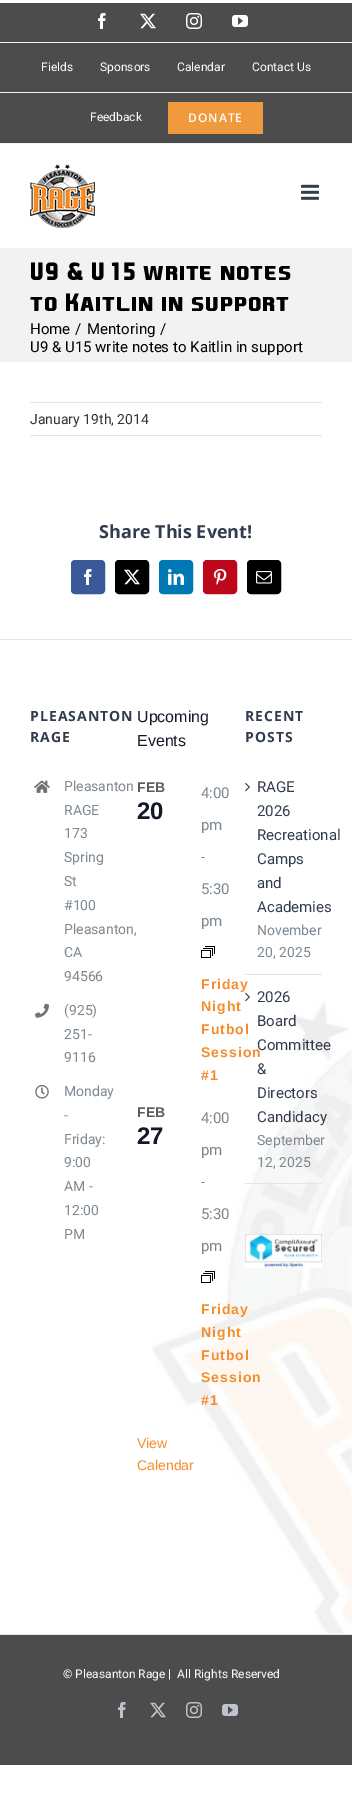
%!PS-Adobe-3.0
%%BoundingBox: 0 0 352 1800
%%LanguageLevel: 3
%%Pages: 1
%%EndComments
%%BeginProlog
/rrect { 5 dict begin { /r /h /w /y /x } { exch def } forall
  x r add y moveto x w add y 2 copy h add r arct x w add y h add x 1 index r arct
  x y h add x y r arct x y 2 copy exch w add exch r arct closepath end } def
/drawimage { 5 dict begin { /h /w /y /x /name } { exch def } forall
  gsave x y translate w h scale
  w h 8 [w 0 0 h 0 0] name (r) file false 3 colorimage grestore end } def
%%EndProlog
%%BeginSetup
<< /PageSize [352 1800] >> setpagedevice
%%EndSetup
%%Page: 1 1
0 1800 translate 1 -1 scale
4 setmiterlimit
1 setgray
0 0 352 1800 rectfill
0.298 setgray
0 3 352 140 rectfill
0.949 setgray
0 143 352 1 rectfill
0 42 352 1 rectfill
(images/1.raw) 98 13 8 16 drawimage
(images/2.raw) 140 13 16 16 drawimage
(images/3.raw) 186 13 16 16 drawimage
(images/4.raw) 232 15 16 12 drawimage
0 92 352 1 rectfill
0.941 0.604 0.243 setrgbcolor
168 102 95 32 rectfill
(images/5.raw) 30 164 65 64 drawimage
(images/6.raw) 301 184 18 16 drawimage
0.949 setgray
0 248 352 114 rectfill
0.906 0.894 0.886 setrgbcolor
30 402 292 1 rectfill
30 435 292 1 rectfill
0.231 0.349 0.596 setrgbcolor
71.5 560.5 33 33 3.5 rrect gsave fill grestore
stroke
(images/7.raw) 84 569 8 16 drawimage
0 setgray
115.5 560.5 33 33 3.5 rrect gsave fill grestore
stroke
(images/8.raw) 124 569 16 16 drawimage
0 0.467 0.71 setrgbcolor
159.5 560.5 33 33 3.5 rrect gsave fill grestore
stroke
(images/9.raw) 168 569 16 16 drawimage
0.741 0.031 0.11 setrgbcolor
203.5 560.5 33 33 3.5 rrect gsave fill grestore
stroke
(images/10.raw) 213 569 14 16 drawimage
0 setgray
247.5 560.5 33 33 3.5 rrect gsave fill grestore
stroke
(images/11.raw) 256 571 16 13 drawimage
(images/12.raw) 151 1001 201 633 drawimage
0.906 0.894 0.886 setrgbcolor
0 639 352 1 rectfill
(images/13.raw) 34 780 16 13 drawimage
(images/14.raw) 35 1003 14 15 drawimage
(images/15.raw) 35 1085 14 14 drawimage
(images/16.raw) 201 946 14 12 drawimage
(images/16.raw) 201 1271 14 12 drawimage
245 974 77 1 rectfill
(images/17.raw) 245 782 5 10 drawimage
245 1183 77 1 rectfill
(images/17.raw) 245 992 5 10 drawimage
(images/18.raw) 245 1234 77 34 drawimage
0.298 setgray
0 1635 352 130 rectfill
0.906 0.894 0.886 setrgbcolor
0 1634 352 1 rectfill
(images/19.raw) 118 1702 8 16 drawimage
(images/20.raw) 150 1702 16 16 drawimage
(images/21.raw) 186 1702 16 16 drawimage
(images/22.raw) 222 1704 16 12 drawimage
/Roboto-Regular [12 0 0 -12 0 0] selectfont
1 setgray
41 71 moveto (Fields) show
100 71 moveto (Sponsors) show
177 71 moveto (Calendar) show
252 71 moveto (Contact Us) show
90 121 moveto (Feedback) show
/OpenSans-SemiBold [12 0 0 -12 0 0] selectfont
188 122 moveto 1 0 (DONATE) ashow
/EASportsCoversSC-Bold [24 0 0 -24 0 0] selectfont
0 setgray
30 280 moveto 1 0 (U9 & U15 write notes) ashow
30 311 moveto 1 0 (to Kaitlin in support) ashow
/Roboto-Regular [15 0 0 -15 0 0] selectfont
30 334 moveto (Home) show
75 334 moveto (/) show
87 334 moveto (Mentoring) show
160 334 moveto (/) show
30 352 moveto (U9 & U15 write notes to Kaitlin in support) show
/Roboto-Regular [14 0 0 -14 0 0] selectfont
0.2 setgray
30 424 moveto (January 19th, 2014) show
/OpenSans-Bold [18 0 0 -18 0 0] selectfont
0.2 0.235 0.306 setrgbcolor
99 538 moveto (Share This Event!) show
/OpenSans-Bold [14 0 0 -14 0 0] selectfont
30 721 moveto 1 0 (PLEASANTON) ashow
30 742 moveto 1 0 (RAGE) ashow
/Roboto-Regular [14 0 0 -14 0 0] selectfont
0.494 0.533 0.565 setrgbcolor
64 791 moveto (Pleasanton) show
64 815 moveto (RAGE) show
64 838 moveto (173) show
64 862 moveto (Spring) show
64 886 moveto (St) show
64 910 moveto (#100) show
64 934 moveto (Pleasanton,) show
64 957 moveto (CA) show
64 981 moveto (94566) show
64 1015 moveto (\(925\)) show
64 1039 moveto (251-) show
64 1062 moveto (9116) show
64 1096 moveto (Monday) show
64 1120 moveto (-) show
64 1144 moveto (Friday:) show
64 1167 moveto (9:00) show
64 1191 moveto (AM -) show
64 1215 moveto (12:00) show
64 1239 moveto (PM) show
/LiberationSans-Regular [16 0 0 -16 0 0] selectfont
0.078 0.094 0.153 setrgbcolor
137 722 moveto (Upcoming) show
137 746 moveto (Events) show
/LiberationSans-Bold [14 0 0 -14 0 0] selectfont
0.365 setgray
137 792 moveto (FEB) show
/LiberationSans-Bold [24 0 0 -24 0 0] selectfont
0.078 0.094 0.153 setrgbcolor
137 819 moveto (20) show
/Roboto-Regular [15 0 0 -15 0 0] selectfont
0.494 0.533 0.565 setrgbcolor
201 798 moveto (4:00) show
201 830 moveto (pm) show
201 862 moveto (-) show
201 894 moveto (5:30) show
201 926 moveto (pm) show
/LiberationSans-Bold [14 0 0 -14 0 0] selectfont
0.965 0.553 0.176 setrgbcolor
201 989 moveto 1 0 (Friday) ashow
201 1011 moveto 1 0 (Night) ashow
201 1034 moveto 1 0 (Futbol) ashow
201 1057 moveto 1 0 (Session) ashow
201 1080 moveto 1 0 (#1) ashow
0.365 setgray
137 1117 moveto (FEB) show
/LiberationSans-Bold [24 0 0 -24 0 0] selectfont
0.078 0.094 0.153 setrgbcolor
137 1144 moveto (27) show
/Roboto-Regular [15 0 0 -15 0 0] selectfont
0.494 0.533 0.565 setrgbcolor
201 1123 moveto (4:00) show
201 1155 moveto (pm) show
201 1187 moveto (-) show
201 1219 moveto (5:30) show
201 1251 moveto (pm) show
/LiberationSans-Bold [14 0 0 -14 0 0] selectfont
0.965 0.553 0.176 setrgbcolor
201 1314 moveto 1 0 (Friday) ashow
201 1337 moveto 1 0 (Night) ashow
201 1360 moveto 1 0 (Futbol) ashow
201 1382 moveto 1 0 (Session) ashow
201 1405 moveto 1 0 (#1) ashow
/LiberationSans-Regular [14 0 0 -14 0 0] selectfont
137 1448 moveto (View) show
137 1470 moveto (Calendar) show
/OpenSans-Bold [14 0 0 -14 0 0] selectfont
0.2 0.235 0.306 setrgbcolor
245 721 moveto 1 0 (RECENT) ashow
245 742 moveto 1 0 (POSTS) ashow
/Roboto-Regular [15 0 0 -15 0 0] selectfont
257 792 moveto (RAGE) show
257 816 moveto (2026) show
257 840 moveto (Recreational) show
257 864 moveto (Camps) show
257 888 moveto (and) show
257 912 moveto (Academies) show
/Roboto-Regular [14 0 0 -14 0 0] selectfont
0.494 0.533 0.565 setrgbcolor
257 935 moveto (November) show
257 957 moveto (20, 2025) show
/Roboto-Regular [15 0 0 -15 0 0] selectfont
0.2 0.235 0.306 setrgbcolor
257 1002 moveto (2026) show
257 1026 moveto (Board) show
257 1050 moveto (Committee) show
257 1074 moveto (&) show
257 1098 moveto (Directors) show
257 1122 moveto (Candidacy) show
/Roboto-Regular [14 0 0 -14 0 0] selectfont
0.494 0.533 0.565 setrgbcolor
257 1145 moveto (September) show
257 1167 moveto (12, 2025) show
/Roboto-Regular [12 0 0 -12 0 0] selectfont
1 setgray
63 1678 moveto (© Pleasanton Rage |  All Rights Reserved) show
showpage
%%EOF
